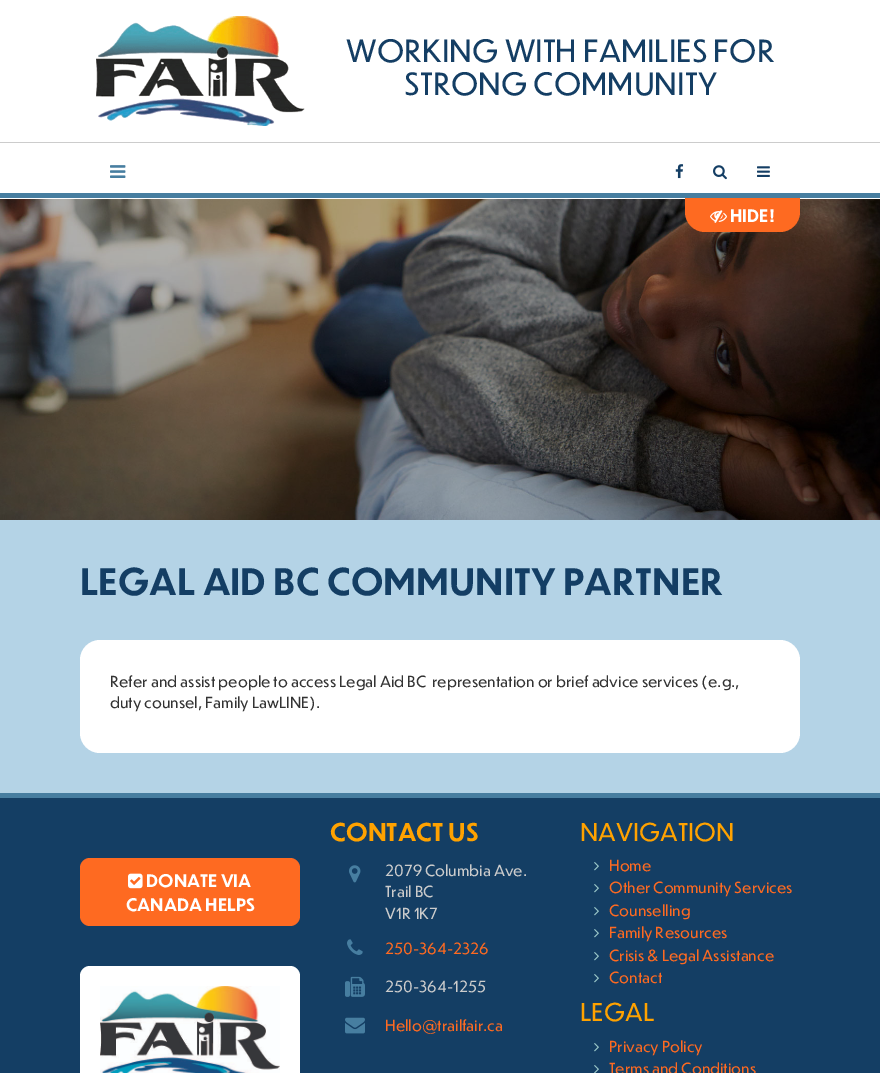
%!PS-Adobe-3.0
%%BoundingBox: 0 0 880 1073
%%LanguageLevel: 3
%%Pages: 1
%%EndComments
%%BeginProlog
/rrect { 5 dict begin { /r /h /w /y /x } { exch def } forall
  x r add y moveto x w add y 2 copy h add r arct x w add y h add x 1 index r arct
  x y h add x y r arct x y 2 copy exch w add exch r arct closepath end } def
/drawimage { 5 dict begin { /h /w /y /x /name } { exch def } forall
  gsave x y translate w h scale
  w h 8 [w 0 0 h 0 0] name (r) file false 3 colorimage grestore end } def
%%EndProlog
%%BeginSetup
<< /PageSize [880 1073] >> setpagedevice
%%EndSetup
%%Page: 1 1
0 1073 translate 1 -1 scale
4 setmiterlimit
1 setgray
0 0 880 1073 rectfill
(images/1.raw) 96 16 209 110 drawimage
0.8 setgray
0 142 880 1 rectfill
0.278 0.494 0.627 setrgbcolor
0 193 880 5 rectfill
(images/2.raw) 110 165 16 13 drawimage
(images/3.raw) 675 164 9 15 drawimage
(images/4.raw) 713 165 14 15 drawimage
(images/5.raw) 757 166 13 11 drawimage
(images/15.raw) 0 199 880 321 drawimage
0.996 0.416 0.129 setrgbcolor
newpath 685 198 moveto 800 198 lineto 800 212 lineto 800 223 791 232 780 232 curveto 705 232 lineto 694 232 685 223 685 212 curveto closepath fill
(images/6.raw) 710 210 17 13 drawimage
0.706 0.827 0.902 setrgbcolor
0 520 880 273 rectfill
1 setgray
80 640 720 113 20 rrect fill
0.078 0.243 0.392 setrgbcolor
0 798 880 275 rectfill
0.278 0.494 0.627 setrgbcolor
0 793 880 5 rectfill
0.996 0.416 0.129 setrgbcolor
80 858 220 68 10 rrect fill
(images/7.raw) 128 873 15 16 drawimage
1 setgray
80 966 220 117 10 rrect fill
(images/8.raw) 100 986 180 87 drawimage
(images/9.raw) 349 865 12 18 drawimage
(images/10.raw) 347 939 16 16 drawimage
(images/11.raw) 345 976 20 21 drawimage
(images/12.raw) 345 1017 20 17 drawimage
(images/13.raw) 594 862 5 9 drawimage
(images/13.raw) 594 884 5 9 drawimage
(images/13.raw) 594 907 5 9 drawimage
(images/13.raw) 594 929 5 9 drawimage
(images/13.raw) 594 952 5 9 drawimage
(images/13.raw) 594 974 5 9 drawimage
(images/13.raw) 594 1043 5 9 drawimage
(images/14.raw) 594 1065 5 8 drawimage
/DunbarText-Regular [30 0 0 -30 0 0] selectfont
0.078 0.243 0.392 setrgbcolor
346 62 moveto (WORKING WITH FAMILIES FOR) show
404 95 moveto (STRONG COMMUNITY) show
/DunbarText-Bold [17 0 0 -17 0 0] selectfont
1 setgray
730 222 moveto (HIDE!) show
/DunbarText-Bold [36 0 0 -36 0 0] selectfont
0.078 0.243 0.392 setrgbcolor
80 595 moveto (LEGAL AID BC COMMUNITY PARTNER) show
/DunbarText-Regular [15 0 0 -15 0 0] selectfont
0.2 setgray
110 687 moveto (Refer and assist people to access Legal Aid BC  representation or brief advice services \(e.g.,) show
110 708 moveto (duty counsel, Family LawLINE\).) show
/DunbarText-Bold [17 0 0 -17 0 0] selectfont
1 setgray
146 887 moveto (DONATE VIA) show
126 911 moveto (CANADA HELPS) show
/DunbarText-Bold [24 0 0 -24 0 0] selectfont
1 0.635 0 setrgbcolor
330 841 moveto (CONTACT US) show
/DunbarText-Regular [15 0 0 -15 0 0] selectfont
0.8 setgray
385 876 moveto (2079 Columbia Ave.) show
385 897 moveto (Trail BC) show
385 919 moveto (V1R 1K7) show
0.996 0.416 0.129 setrgbcolor
385 954 moveto (250-364-2326) show
0.8 setgray
385 992 moveto (250-364-1255) show
0.996 0.416 0.129 setrgbcolor
385 1031 moveto (Hello@trailfair.ca) show
/DunbarText-Regular [24 0 0 -24 0 0] selectfont
1 0.635 0 setrgbcolor
580 841 moveto (NAVIGATION) show
/DunbarText-Regular [15 0 0 -15 0 0] selectfont
0.996 0.416 0.129 setrgbcolor
609 871 moveto (Home) show
609 893 moveto (Other Community Services) show
609 916 moveto (Counselling) show
609 938 moveto (Family Resources) show
609 961 moveto (Crisis & Legal Assistance) show
609 983 moveto (Contact) show
/DunbarText-Regular [24 0 0 -24 0 0] selectfont
1 0.635 0 setrgbcolor
580 1021 moveto (LEGAL) show
/DunbarText-Regular [15 0 0 -15 0 0] selectfont
0.996 0.416 0.129 setrgbcolor
609 1052 moveto (Privacy Policy) show
609 1074 moveto (Terms and Conditions) show
showpage
%%EOF
